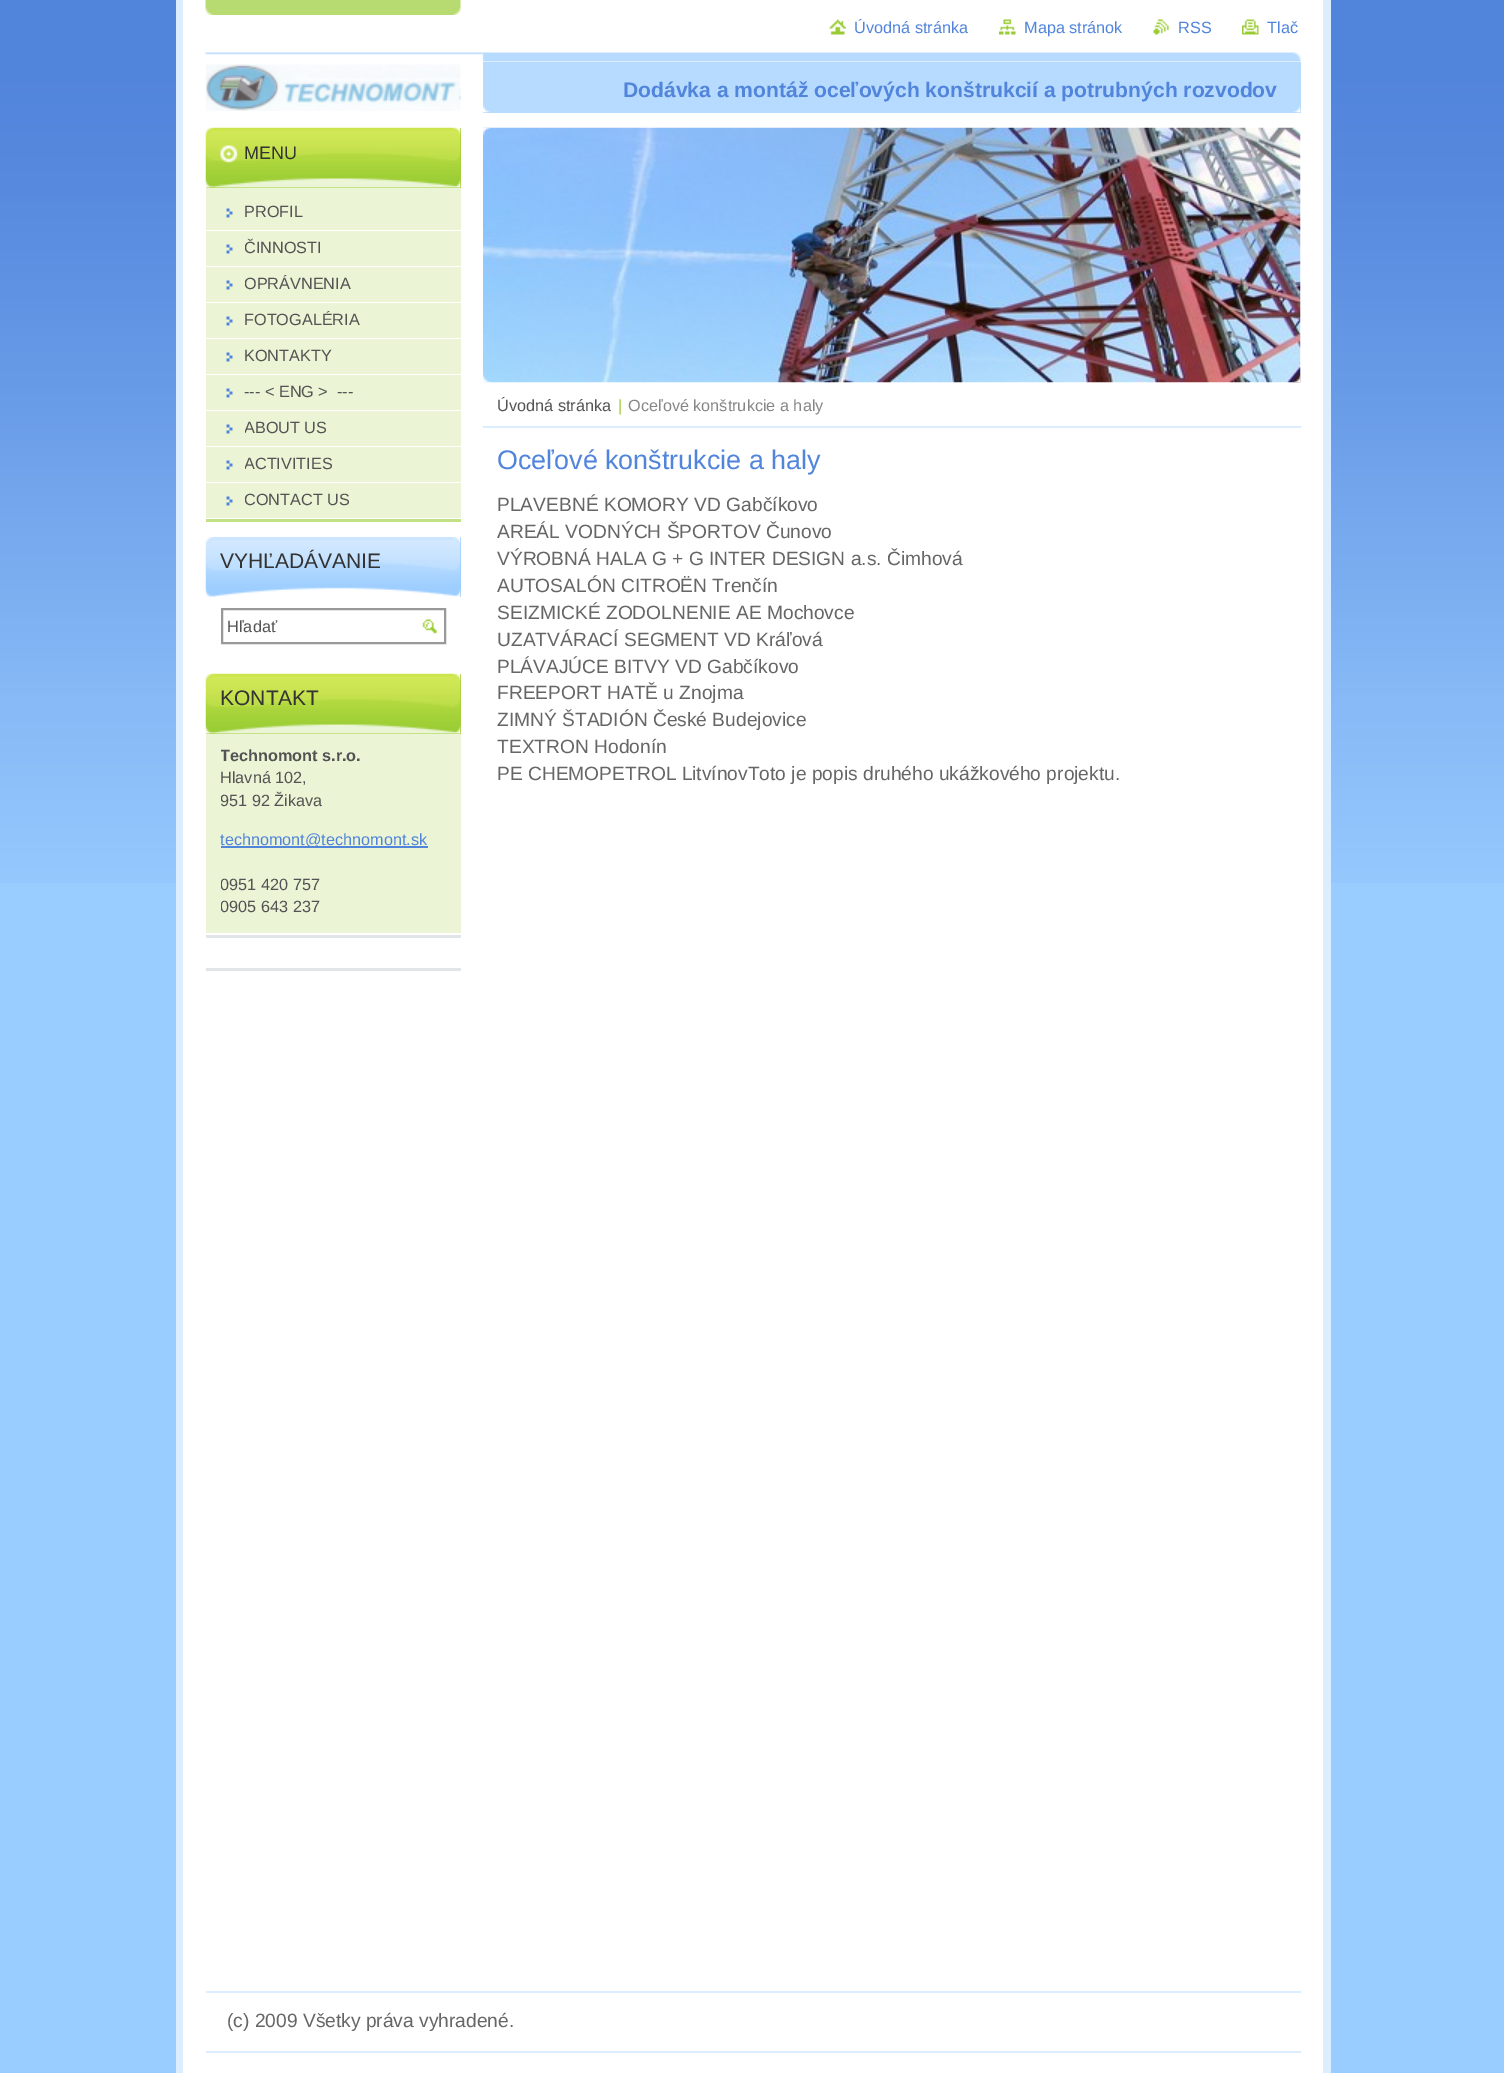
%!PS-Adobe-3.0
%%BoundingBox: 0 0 1504 2073
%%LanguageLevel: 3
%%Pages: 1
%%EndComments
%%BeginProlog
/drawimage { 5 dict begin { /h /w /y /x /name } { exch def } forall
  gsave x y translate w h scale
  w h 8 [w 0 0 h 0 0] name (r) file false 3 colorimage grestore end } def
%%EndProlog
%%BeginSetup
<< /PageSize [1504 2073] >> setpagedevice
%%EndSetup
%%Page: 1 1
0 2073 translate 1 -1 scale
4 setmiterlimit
0.6 0.8 1 setrgbcolor
0 0 1504 2073 rectfill
(images/1.raw) 0 0 1504 883 drawimage
1 setgray
183 0 1140 2073 rectfill
(images/2.raw) 205 0 256 15 drawimage
0.859 0.929 1 setrgbcolor
1323 0 8 2073 rectfill
176 0 7 2073 rectfill
(images/3.raw) 829 19 17 16 drawimage
(images/4.raw) 999 19 17 16 drawimage
(images/5.raw) 1153 19 16 16 drawimage
(images/6.raw) 1242 19 17 16 drawimage
(images/7.raw) 205 52 1096 10 drawimage
(images/8.raw) 205 64 256 47 drawimage
0.718 0.859 1 setrgbcolor
483 62 818 51 rectfill
(images/9.raw) 483 105 818 8 drawimage
0.761 0.878 0.518 setrgbcolor
206 519 255 3 rectfill
0.922 0.961 0.839 setrgbcolor
206 188 255 42 rectfill
0.624 0.812 0.212 setrgbcolor
206 128 255 60 rectfill
(images/10.raw) 205 127 256 52 drawimage
(images/11.raw) 205 178 256 10 drawimage
(images/12.raw) 226 208 7 10 drawimage
0.922 0.961 0.839 setrgbcolor
206 231 255 35 rectfill
(images/12.raw) 226 244 7 10 drawimage
206 267 255 35 rectfill
(images/12.raw) 226 280 7 10 drawimage
206 303 255 35 rectfill
(images/12.raw) 226 316 7 10 drawimage
206 339 255 35 rectfill
(images/12.raw) 226 352 7 10 drawimage
206 375 255 35 rectfill
(images/12.raw) 226 388 7 10 drawimage
206 411 255 35 rectfill
(images/12.raw) 226 424 7 10 drawimage
206 447 255 35 rectfill
(images/12.raw) 226 460 7 10 drawimage
206 483 255 35 rectfill
(images/12.raw) 226 496 7 10 drawimage
0.624 0.812 1 setrgbcolor
206 537 255 60 rectfill
(images/13.raw) 205 537 256 52 drawimage
(images/14.raw) 205 587 256 10 drawimage
0.6 setgray
2 setlinewidth
222 609 223 34 rectstroke
(images/15.raw) 422 619 15 15 drawimage
0.886 0.898 0.91 setrgbcolor
206 935 255 3 rectfill
0.922 0.961 0.839 setrgbcolor
206 734 255 199 rectfill
0.624 0.812 0.212 setrgbcolor
206 674 255 60 rectfill
(images/16.raw) 205 673 256 52 drawimage
(images/17.raw) 205 724 256 10 drawimage
0.318 0.518 0.859 setrgbcolor
221 846 207 2 rectfill
0.886 0.898 0.91 setrgbcolor
206 968 255 3 rectfill
(images/18.raw) 483 127 818 256 drawimage
(images/19.raw) 483 127 818 256 drawimage
0.859 0.929 1 setrgbcolor
483 426 818 2 rectfill
206 1991 1095 2 rectfill
206 2051 1095 2 rectfill
/LiberationSans-Regular [16.25 0 0 -16.25 0 0] selectfont
0.318 0.518 0.859 setrgbcolor
854 33 moveto (Úvodná stránka) show
1024 33 moveto (Mapa stránok) show
1178 33 moveto (RSS) show
1267 33 moveto (Tlač) show
/LiberationSans-Bold [21.1 0 0 -21.1 0 0] selectfont
623 97 moveto (Dodávka a montáž oceľových konštrukcií a potrubných rozvodov) show
/LiberationSans-Regular [18 0 0 -18 0 0] selectfont
0.2 setgray
244 159 moveto (MENU) show
/LiberationSans-Regular [16.25 0 0 -16.25 0 0] selectfont
0.325 setgray
244 217 moveto (PROFIL) show
gsave
245 231 201 35 rectclip
244 253 moveto (ČINNOSTI) show
grestore
gsave
245 267 201 35 rectclip
244 289 moveto (OPRÁVNENIA) show
grestore
244 325 moveto (FOTOGALÉRIA) show
244 361 moveto (KONTAKTY) show
244 397 moveto (--- < ENG >  ---) show
gsave
245 411 201 35 rectclip
244 433 moveto (ABOUT US) show
grestore
gsave
245 447 201 35 rectclip
244 469 moveto (ACTIVITIES) show
grestore
gsave
245 483 201 35 rectclip
244 505 moveto (CONTACT US) show
grestore
/LiberationSans-Regular [21 0 0 -21 0 0] selectfont
0.2 setgray
220 568 moveto (VYHĽADÁVANIE) show
/LiberationSans-Regular [16.25 0 0 -16.25 0 0] selectfont
0.325 setgray
227 632 moveto (Hľadať) show
/LiberationSans-Regular [21 0 0 -21 0 0] selectfont
0.2 setgray
220 705 moveto (KONTAKT) show
gsave
221 744 225 174 rectclip
/LiberationSans-Bold [16.25 0 0 -16.25 0 0] selectfont
0.325 setgray
220 761 moveto (Technomont s.r.o.) show
grestore
/LiberationSans-Regular [16.25 0 0 -16.25 0 0] selectfont
0.325 setgray
220 783 moveto (Hlavná 102,) show
gsave
221 744 225 174 rectclip
220 806 moveto (951 92 Žikava) show
grestore
0.318 0.518 0.859 setrgbcolor
220 845 moveto (technomont@technomont.sk) show
gsave
221 744 225 174 rectclip
0.325 setgray
220 890 moveto (0951) show
grestore
0.325 setgray
261 890 moveto (420 757) show
gsave
221 744 225 174 rectclip
220 912 moveto (0905) show
grestore
261 912 moveto (643 237) show
497 411 moveto (Úvodná stránka) show
0.6 0.8 0.2 setrgbcolor
618 411 moveto (|) show
0.529 setgray
628 411 moveto (Oceľové konštrukcie a haly) show
/LiberationSans-Regular [26.9 0 0 -26.9 0 0] selectfont
0.318 0.518 0.859 setrgbcolor
497 469 moveto (Oceľové konštrukcie a haly) show
/LiberationSans-Regular [19.2 0 0 -19.2 0 0] selectfont
0.4 setgray
497 511 moveto (PLAVEBNÉ KOMORY VD Gabčíkovo) show
497 538 moveto (AREÁL VODNÝCH ŠPORTOV Čunovo) show
497 565 moveto (VÝROBNÁ HALA G + G INTER DESIGN a.s. Čimhová) show
497 592 moveto (AUTOSALÓN CITROËN Trenčín) show
497 619 moveto (SEIZMICKÉ ZODOLNENIE AE Mochovce) show
497 646 moveto (UZATVÁRACÍ SEGMENT VD Kráľová) show
497 673 moveto (PLÁVAJÚCE BITVY VD Gabčíkovo) show
497 699 moveto (FREEPORT HATĚ u Znojma) show
497 726 moveto (ZIMNÝ ŠTADIÓN České Budejovice) show
497 753 moveto (TEXTRON Hodonín) show
497 780 moveto (PE CHEMOPETROL LitvínovToto je popis druhého ukážkového projektu.) show
227 2027 moveto (\(c\) 2009 Všetky práva vyhradené.) show
showpage
%%EOF
